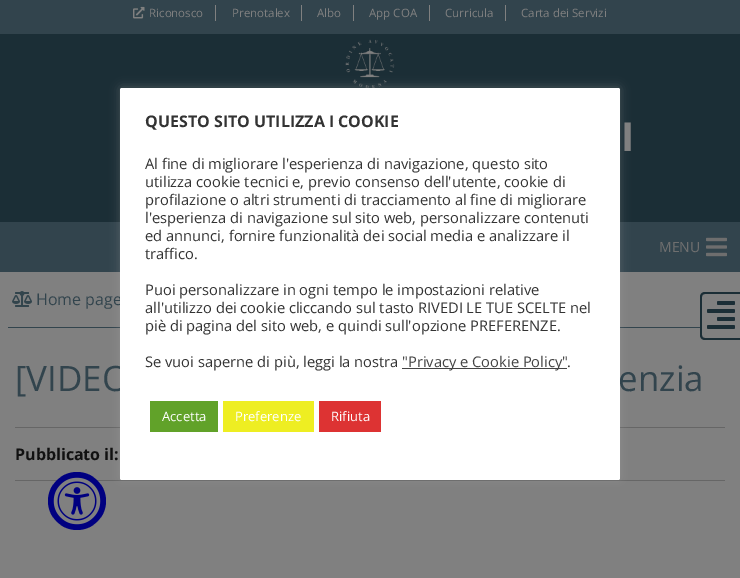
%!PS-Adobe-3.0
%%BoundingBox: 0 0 740 578
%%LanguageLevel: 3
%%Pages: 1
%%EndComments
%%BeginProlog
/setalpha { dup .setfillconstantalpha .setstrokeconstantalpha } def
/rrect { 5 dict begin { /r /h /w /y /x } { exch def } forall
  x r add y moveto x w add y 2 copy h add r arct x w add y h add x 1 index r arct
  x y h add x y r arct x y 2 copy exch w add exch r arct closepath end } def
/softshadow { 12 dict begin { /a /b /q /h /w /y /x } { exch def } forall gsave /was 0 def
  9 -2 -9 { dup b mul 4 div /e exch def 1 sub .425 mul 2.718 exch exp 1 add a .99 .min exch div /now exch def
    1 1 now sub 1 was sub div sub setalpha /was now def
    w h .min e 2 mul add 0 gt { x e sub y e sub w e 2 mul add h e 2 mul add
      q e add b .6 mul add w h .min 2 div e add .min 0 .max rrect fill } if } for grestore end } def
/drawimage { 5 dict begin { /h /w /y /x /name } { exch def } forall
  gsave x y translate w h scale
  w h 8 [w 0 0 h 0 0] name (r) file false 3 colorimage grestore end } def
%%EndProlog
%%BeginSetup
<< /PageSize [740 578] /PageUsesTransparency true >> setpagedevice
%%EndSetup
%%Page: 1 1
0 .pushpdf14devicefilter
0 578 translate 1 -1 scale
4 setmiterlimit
0.502 setgray
0 0 740 578 rectfill
0.106 0.18 0.212 setrgbcolor
0 34 740 188 rectfill
0.196 0.267 0.302 setrgbcolor
0 0 740 34 rectfill
0.502 setgray
215 5 1 16 rectfill
(images/1.raw) 133 6 12 13 drawimage
301 5 1 16 rectfill
353 5 1 16 rectfill
429 5 1 16 rectfill
505 5 1 16 rectfill
(images/2.raw) 345 39 50 49 drawimage
0.196 0.267 0.302 setrgbcolor
0 222 740 50 rectfill
(images/3.raw) 706 237 21 20 drawimage
0.4 setgray
15 480 710 1 rectfill
0 0 0.502 setrgbcolor
newpath 77 501 29 0 360 arc closepath fill
(images/4.raw) 53 477 48 48 drawimage
0.196 0.267 0.302 setrgbcolor
8 327 692 1 rectfill
(images/5.raw) 12 291 20 16 drawimage
0.106 0.18 0.212 setrgbcolor
newpath 705 292 moveto 740 292 lineto 740 340 lineto 705 340 lineto 702 340 700 338 700 335 curveto 700 297 lineto 700 294 702 292 705 292 curveto closepath 705 294 moveto 740 294 lineto 740 338 lineto 705 338 lineto 703 338 702 337 702 335 curveto 702 297 lineto 702 295 703 294 705 294 curveto closepath eofill
(images/6.raw) 707 301 28 28 drawimage
0.4 setgray
15 427 710 1 rectfill
0.675 0.671 0.671 setrgbcolor
120 87 500 392 2 5 0.3 softshadow
/OpenSans-Regular [11.5 0 0 -11.5 0 0] selectfont
0.502 setgray
149 17 moveto (Riconosco) show
232 17 moveto (Prenotalex) show
317 17 moveto (Albo) show
369 17 moveto (App COA) show
445 17 moveto (Curricula) show
521 17 moveto (Carta dei Servizi) show
/OpenSans-Bold [40 0 0 -40 0 0] selectfont
621 151 moveto 1 0 (I) ashow
/OpenSans-Regular [14 0 0 -14 0 0] selectfont
0.435 setgray
659 252 moveto (MENU) show
/OpenSans-Regular [16 0 0 -16 0 0] selectfont
0.196 0.267 0.302 setrgbcolor
36 305 moveto (Home page) show
/OpenSans-Regular [35 0 0 -35 0 0] selectfont
15 391 moveto ([VIDEO) show
618 391 moveto (enzia) show
/OpenSans-Bold [16 0 0 -16 0 0] selectfont
0.067 setgray
15 460 moveto (Pubblicato il:) show
1 setgray
120 88 500 392 2 rrect fill
0.2 setgray
145 127 moveto (QUESTO SITO UTILIZZA I COOKIE) show
/OpenSans-Regular [14.7 0 0 -14.7 0 0] selectfont
145 169 moveto (Al fine di migliorare l'esperienza di navigazione, questo sito) show
145 187 moveto (utilizza cookie tecnici e, previo consenso dell'utente, cookie di) show
145 205 moveto (profilazione o altri strumenti di tracciamento al fine di migliorare) show
145 223 moveto (l'esperienza di navigazione sul sito web, personalizzare contenuti) show
145 241 moveto (ed annunci, fornire funzionalità dei social media e analizzare il) show
145 259 moveto (traffico.) show
145 295 moveto (Puoi personalizzare in ogni tempo le impostazioni relative) show
145 313 moveto (all'utilizzo dei cookie cliccando sul tasto RIVEDI LE TUE SCELTE nel) show
145 331 moveto (piè di pagina del sito web, e quindi sull'opzione PREFERENZE.) show
145 367 moveto (Se vuoi saperne di più, leggi la nostra) show
0.267 setgray
402 368 165 1 rectfill
402 367 moveto ("Privacy e Cookie Policy") show
0.2 setgray
567 367 moveto (.) show
0.38 0.635 0.161 setrgbcolor
150 401 68 31 rectfill
/OpenSans-Regular [13 0 0 -13 0 0] selectfont
1 setgray
162 421 moveto (Accetta) show
0.933 0.933 0.133 setrgbcolor
223 401 91 31 rectfill
1 setgray
235 421 moveto (Preferenze) show
0.867 0.2 0.2 setrgbcolor
319 401 62 31 rectfill
1 setgray
331 421 moveto (Rifiuta) show
.poppdf14devicefilter showpage
%%EOF
